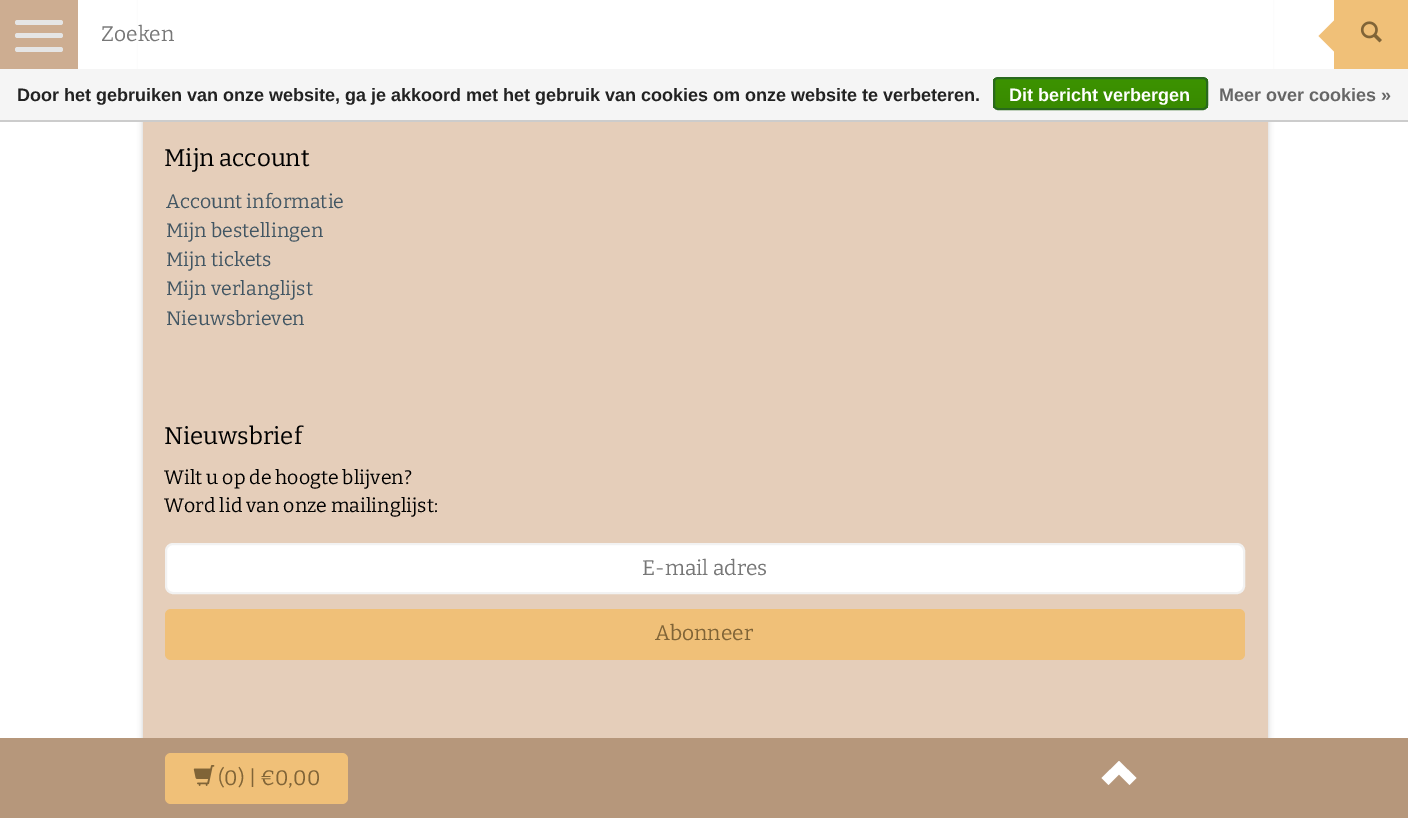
%!PS-Adobe-3.0
%%BoundingBox: 0 0 1408 818
%%LanguageLevel: 3
%%Pages: 1
%%EndComments
%%BeginProlog
/setalpha { dup .setfillconstantalpha .setstrokeconstantalpha } def
/rrect { 5 dict begin { /r /h /w /y /x } { exch def } forall
  x r add y moveto x w add y 2 copy h add r arct x w add y h add x 1 index r arct
  x y h add x y r arct x y 2 copy exch w add exch r arct closepath end } def
/softshadow { 12 dict begin { /a /b /q /h /w /y /x } { exch def } forall gsave /was 0 def
  9 -2 -9 { dup b mul 4 div /e exch def 1 sub .425 mul 2.718 exch exp 1 add a .99 .min exch div /now exch def
    1 1 now sub 1 was sub div sub setalpha /was now def
    w h .min e 2 mul add 0 gt { x e sub y e sub w e 2 mul add h e 2 mul add
      q e add b .6 mul add w h .min 2 div e add .min 0 .max rrect fill } if } for grestore end } def
/drawimage { 5 dict begin { /h /w /y /x /name } { exch def } forall
  gsave x y translate w h scale
  w h 8 [w 0 0 h 0 0] name (r) file false 3 colorimage grestore end } def
%%EndProlog
%%BeginSetup
<< /PageSize [1408 818] /PageUsesTransparency true >> setpagedevice
%%EndSetup
%%Page: 1 1
0 .pushpdf14devicefilter
0 818 translate 1 -1 scale
4 setmiterlimit
1 setgray
0 0 1408 818 rectfill
0 setgray
143 -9 1125 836 0 3 0.2 softshadow
0.804 0.678 0.569 setrgbcolor
0 0 78 69 rectfill
0.898 setgray
15 20 48 5 2.5 rrect fill
15 33 48 5 2.5 rrect fill
15 47 48 5 2.5 rrect fill
1 setgray
138 0 1135 69 rectfill
0.941 0.753 0.471 setrgbcolor
1334 0 74 69 rectfill
newpath 1335 19.5 moveto 1335 52.5 lineto 1318.5 36 lineto closepath fill
(images/1.raw) 1360 21 22 22 drawimage
0.961 setgray
0 69 1408 51 rectfill
0.8 setgray
0 120 1408 2 rectfill
gsave
993 77 215 33 5 rrect clip newpath
gsave newpath 993 78 moveto 1208 78 lineto 1208 108 lineto 993 108 lineto closepath clip newpath
<< /ShadingType 2 /ColorSpace /DeviceRGB /Coords [1100 78 1100 108] /Extend [true true] /Function << /FunctionType 2 /Domain [0 1] /C0 [0.235 0.576 0] /C1 [0.224 0.541 0] /N 1 >> >> shfill grestore
grestore
0.161 0.412 0.114 setrgbcolor
2 setlinewidth
994 78 213 31 4 rrect stroke
0.898 0.808 0.729 setrgbcolor
143 122 1125 616 rectfill
1 setgray
166 544 1078 49 7 rrect gsave fill grestore
0.949 setgray
stroke
0.941 0.753 0.471 setrgbcolor
165 609 1080 51 6 rrect fill
0.714 0.592 0.482 setrgbcolor
0 738 1408 80 rectfill
0.941 0.753 0.471 setrgbcolor
165 753 183 51 6 rrect fill
(images/2.raw) 193 765 22 21 drawimage
1 setgray
newpath 1101.5 778 moveto 1108.5 785 lineto 1119 774.5 lineto 1129.5 785 lineto 1136.5 778 lineto 1119 761 lineto closepath fill
/Bitter-Regular [21 0 0 -21 0 0] selectfont
0.467 setgray
101 41 moveto (Zoeken) show
/LiberationSans-Bold [18 0 0 -18 0 0] selectfont
0.133 setgray
17 101 moveto (Door het gebruiken van onze website, ga je akkoord met het gebruik van cookies om onze website te verbeteren.) show
1 setgray
1009 101 moveto (Dit bericht verbergen) show
0.4 setgray
1219 101 moveto (Meer over cookies ») show
/Bitter-Regular [24 0 0 -24 0 0] selectfont
0 setgray
164 166 moveto (Mijn account) show
/Bitter-Regular [19.5 0 0 -19.5 0 0] selectfont
0.259 0.337 0.388 setrgbcolor
166 208 moveto (Account informatie) show
166 237 moveto (Mijn bestellingen) show
166 266 moveto (Mijn tickets) show
166 295 moveto (Mijn verlanglijst) show
166 325 moveto (Nieuwsbrieven) show
/Bitter-Regular [24 0 0 -24 0 0] selectfont
0 setgray
164 444 moveto (Nieuwsbrief) show
/Bitter-Regular [19.5 0 0 -19.5 0 0] selectfont
164 484 moveto (Wilt u op de hoogte blijven?) show
164 512 moveto (Word lid van onze mailinglijst:) show
/Bitter-Regular [21 0 0 -21 0 0] selectfont
0.467 setgray
642 575 moveto (E-mail adres) show
0.502 0.392 0.216 setrgbcolor
655 640 moveto (Abonneer) show
218 785 moveto (\(0\) | €0,00) show
.poppdf14devicefilter showpage
%%EOF
